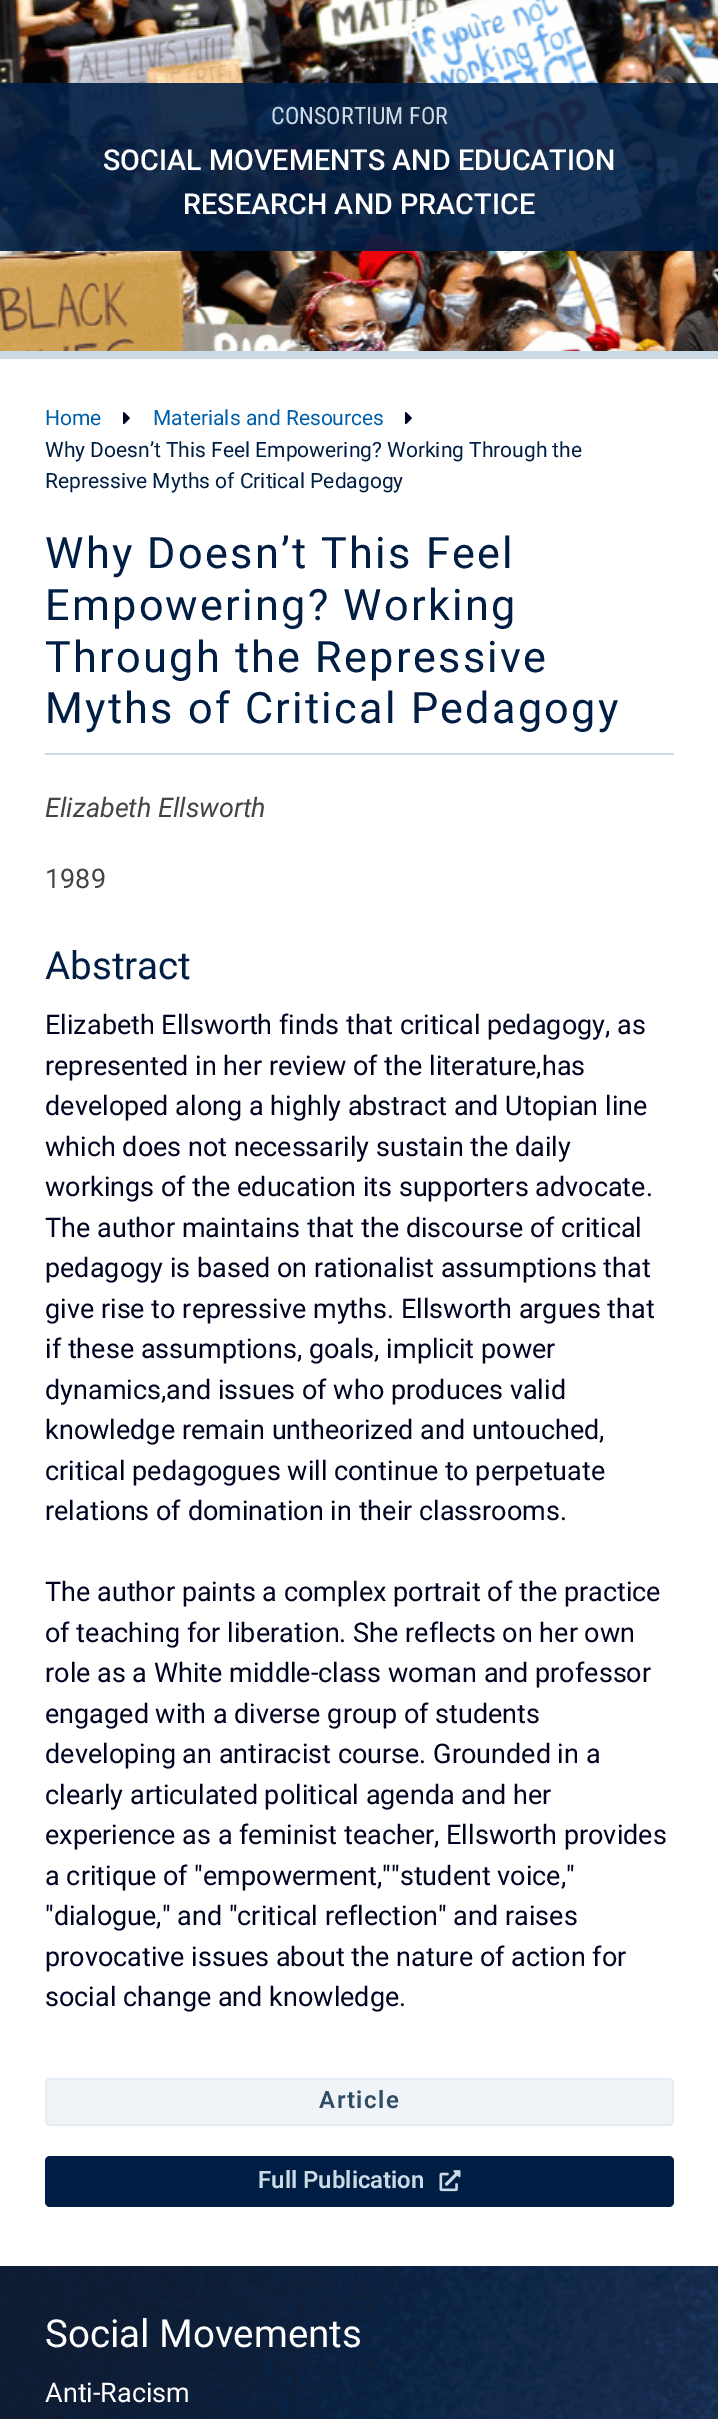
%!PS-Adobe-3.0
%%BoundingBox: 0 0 718 2419
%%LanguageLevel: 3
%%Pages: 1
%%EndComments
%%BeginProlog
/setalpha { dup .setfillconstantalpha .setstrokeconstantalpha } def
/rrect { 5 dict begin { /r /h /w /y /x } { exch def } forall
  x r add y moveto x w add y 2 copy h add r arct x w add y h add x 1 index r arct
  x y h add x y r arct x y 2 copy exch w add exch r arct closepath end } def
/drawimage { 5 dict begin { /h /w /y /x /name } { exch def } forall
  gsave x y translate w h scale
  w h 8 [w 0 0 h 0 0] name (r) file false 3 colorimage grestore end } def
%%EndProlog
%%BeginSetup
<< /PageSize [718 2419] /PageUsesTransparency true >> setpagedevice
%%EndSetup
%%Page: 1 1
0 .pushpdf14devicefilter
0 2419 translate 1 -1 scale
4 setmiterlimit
1 setgray
0 0 718 2419 rectfill
(images/1.raw) 0 0 718 351 drawimage
0.9 setalpha
0 0.118 0.267 setrgbcolor
0 83 718 168 rectfill
1 setalpha
0.8 0.855 0.902 setrgbcolor
0 351 718 8 rectfill
(images/2.raw) 123 412 7 13 drawimage
(images/2.raw) 405 412 7 13 drawimage
45 753 629 2 rectfill
0.941 0.957 0.973 setrgbcolor
45 2078 629 48 5 rrect fill
0.3 setalpha
0.8 0.855 0.902 setrgbcolor
2 setlinewidth
46 2079 627 46 4 rrect stroke
1 setalpha
0 0.118 0.267 setrgbcolor
45 2156 629 51 5 rrect fill
(images/3.raw) 439 2170 22 22 drawimage
(images/4.raw) 0 2266 718 153 drawimage
/RobotoCondensed-Regular [24 0 0 -24 0 0] selectfont
0.8 0.855 0.902 setrgbcolor
271 124 moveto (CONSORTIUM FOR) show
/Roboto-Medium [28.75 0 0 -28.75 0 0] selectfont
1 setgray
103 170 moveto (SOCIAL MOVEMENTS AND EDUCATION) show
183 214 moveto (RESEARCH AND PRACTICE) show
/Roboto-Regular [21 0 0 -21 0 0] selectfont
0 0.373 0.663 setrgbcolor
45 425 moveto (Home) show
153 425 moveto (Materials and Resources) show
0 0.118 0.267 setrgbcolor
45 457 moveto (Why Doesn’t This Feel Empowering? Working Through the) show
45 488 moveto (Repressive Myths of Critical Pedagogy) show
/Roboto-Regular [43.25 0 0 -43.25 0 0] selectfont
45 568 moveto 2.25 0 (Why Doesn’t This Feel) ashow
45 620 moveto 2.25 0 (Empowering? Working) ashow
45 672 moveto 2.25 0 (Through the Repressive) ashow
45 723 moveto 2.25 0 (Myths of Critical Pedagogy) ashow
/Roboto-Italic [27 0 0 -27 0 0] selectfont
0.267 setgray
45 817 moveto (Elizabeth Ellsworth) show
/Roboto-Regular [27 0 0 -27 0 0] selectfont
45 888 moveto (1989) show
/Roboto-Regular [38.5 0 0 -38.5 0 0] selectfont
0 0.118 0.267 setrgbcolor
45 979 moveto (Abstract) show
/Roboto-Regular [27 0 0 -27 0 0] selectfont
0 0.012 0.129 setrgbcolor
45 1034 moveto (Elizabeth Ellsworth finds that critical pedagogy, as) show
45 1075 moveto (represented in her review of the literature,has) show
45 1115 moveto (developed along a highly abstract and Utopian line) show
45 1156 moveto (which does not necessarily sustain the daily) show
45 1196 moveto (workings of the education its supporters advocate.) show
45 1237 moveto (The author maintains that the discourse of critical) show
45 1277 moveto (pedagogy is based on rationalist assumptions that) show
45 1318 moveto (give rise to repressive myths. Ellsworth argues that) show
45 1358 moveto (if these assumptions, goals, implicit power) show
45 1399 moveto (dynamics,and issues of who produces valid) show
45 1439 moveto (knowledge remain untheorized and untouched,) show
45 1480 moveto (critical pedagogues will continue to perpetuate) show
45 1520 moveto (relations of domination in their classrooms.) show
45 1601 moveto (The author paints a complex portrait of the practice) show
45 1642 moveto (of teaching for liberation. She reflects on her own) show
45 1682 moveto (role as a White middle-class woman and professor) show
45 1723 moveto (engaged with a diverse group of students) show
45 1763 moveto (developing an antiracist course. Grounded in a) show
45 1804 moveto (clearly articulated political agenda and her) show
45 1844 moveto (experience as a feminist teacher, Ellsworth provides) show
45 1885 moveto (a critique of "empowerment,""student voice,") show
45 1925 moveto ("dialogue," and "critical reflection" and raises) show
45 1966 moveto (provocative issues about the nature of action for) show
45 2006 moveto (social change and knowledge.) show
/Roboto-SemiBold [24 0 0 -24 0 0] selectfont
0.192 0.302 0.392 setrgbcolor
319 2108 moveto 1.5 0 (Article) ashow
0.8 0.855 0.902 setrgbcolor
258 2188 moveto (Full Publication) show
/Roboto-Regular [38.5 0 0 -38.5 0 0] selectfont
1 setgray
45 2347 moveto (Social Movements) show
/Roboto-Regular [27 0 0 -27 0 0] selectfont
45 2402 moveto (Anti-Racism) show
.poppdf14devicefilter showpage
%%EOF
